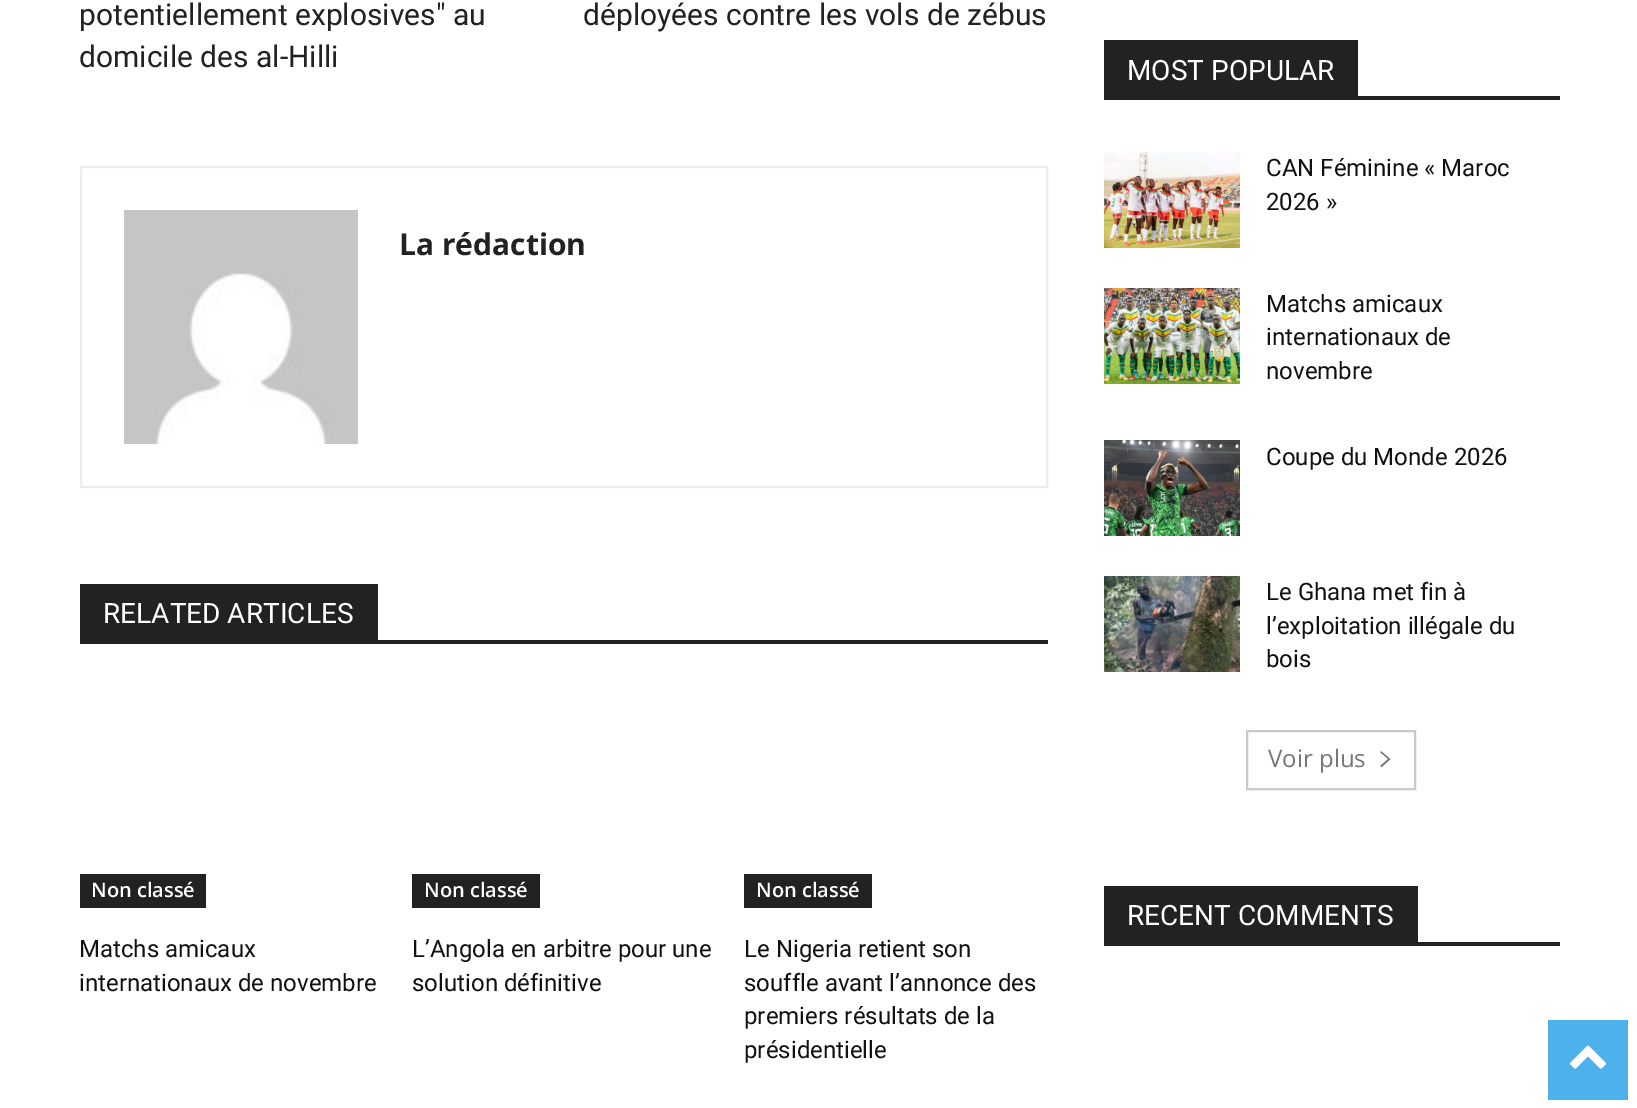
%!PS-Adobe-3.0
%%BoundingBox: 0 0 1637 1108
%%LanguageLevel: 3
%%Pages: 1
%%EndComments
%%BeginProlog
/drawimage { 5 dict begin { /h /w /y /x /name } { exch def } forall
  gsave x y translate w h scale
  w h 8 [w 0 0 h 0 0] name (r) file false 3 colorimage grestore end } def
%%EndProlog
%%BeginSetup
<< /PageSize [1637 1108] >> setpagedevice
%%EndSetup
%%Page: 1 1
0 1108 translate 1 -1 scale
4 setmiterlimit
1 setgray
0 0 1637 1108 rectfill
0.929 setgray
2 setlinewidth
81 167 966 320 rectstroke
(images/1.raw) 124 210 234 234 drawimage
0.133 setgray
80 640 968 4 rectfill
80 584 298 56 rectfill
80 874 126 34 rectfill
412 874 128 34 rectfill
744 874 128 34 rectfill
1104 96 456 4 rectfill
1104 40 254 56 rectfill
(images/2.raw) 1104 152 136 96 drawimage
(images/3.raw) 1104 288 136 96 drawimage
(images/4.raw) 1104 440 136 96 drawimage
(images/5.raw) 1104 576 136 96 drawimage
0.788 setgray
1247 731 168 58 rectstroke
(images/6.raw) 1380 751 11 17 drawimage
0.133 setgray
1104 942 456 4 rectfill
1104 886 314 56 rectfill
0.302 0.698 0.925 setrgbcolor
1548 1020 80 80 rectfill
(images/7.raw) 1570 1045 36 24 drawimage
/Roboto-Regular [30 0 0 -30 0 0] selectfont
0.133 setgray
79 25 moveto (potentiellement explosives" au) show
79 67 moveto (domicile des al-Hilli) show
583 25 moveto (déployées contre les vols de zébus) show
/OpenSans-Bold [30 0 0 -30 0 0] selectfont
399 255 moveto (La rédaction) show
/Roboto-Regular [28 0 0 -28 0 0] selectfont
1 setgray
103 623 moveto (RELATED ARTICLES) show
/OpenSans-SemiBold [20 0 0 -20 0 0] selectfont
91 897 moveto (Non classé) show
/Roboto-Regular [24 0 0 -24 0 0] selectfont
0.067 setgray
79 957 moveto (Matchs amicaux) show
79 991 moveto (internationaux de novembre) show
/OpenSans-SemiBold [20 0 0 -20 0 0] selectfont
1 setgray
424 897 moveto (Non classé) show
/Roboto-Regular [24 0 0 -24 0 0] selectfont
0.067 setgray
412 957 moveto (L’Angola en arbitre pour une) show
412 991 moveto (solution définitive) show
/OpenSans-SemiBold [20 0 0 -20 0 0] selectfont
1 setgray
756 897 moveto (Non classé) show
/Roboto-Regular [24 0 0 -24 0 0] selectfont
0.067 setgray
744 957 moveto (Le Nigeria retient son) show
744 991 moveto (souffle avant l’annonce des) show
744 1024 moveto (premiers résultats de la) show
744 1058 moveto (présidentielle) show
/Roboto-Regular [28 0 0 -28 0 0] selectfont
1 setgray
1127 80 moveto (MOST POPULAR) show
/Roboto-Regular [24 0 0 -24 0 0] selectfont
0.067 setgray
1266 176 moveto (CAN Féminine « Maroc) show
1266 210 moveto (2026 ») show
1266 312 moveto (Matchs amicaux) show
1266 345 moveto (internationaux de) show
1266 379 moveto (novembre) show
1266 465 moveto (Coupe du Monde 2026) show
1266 600 moveto (Le Ghana met fin à) show
1266 634 moveto (l’exploitation illégale du) show
1266 667 moveto (bois) show
/OpenSans-Regular [24 0 0 -24 0 0] selectfont
0.463 setgray
1268 767 moveto (Voir plus) show
/Roboto-Regular [28 0 0 -28 0 0] selectfont
1 setgray
1127 925 moveto (RECENT COMMENTS) show
showpage
%%EOF
